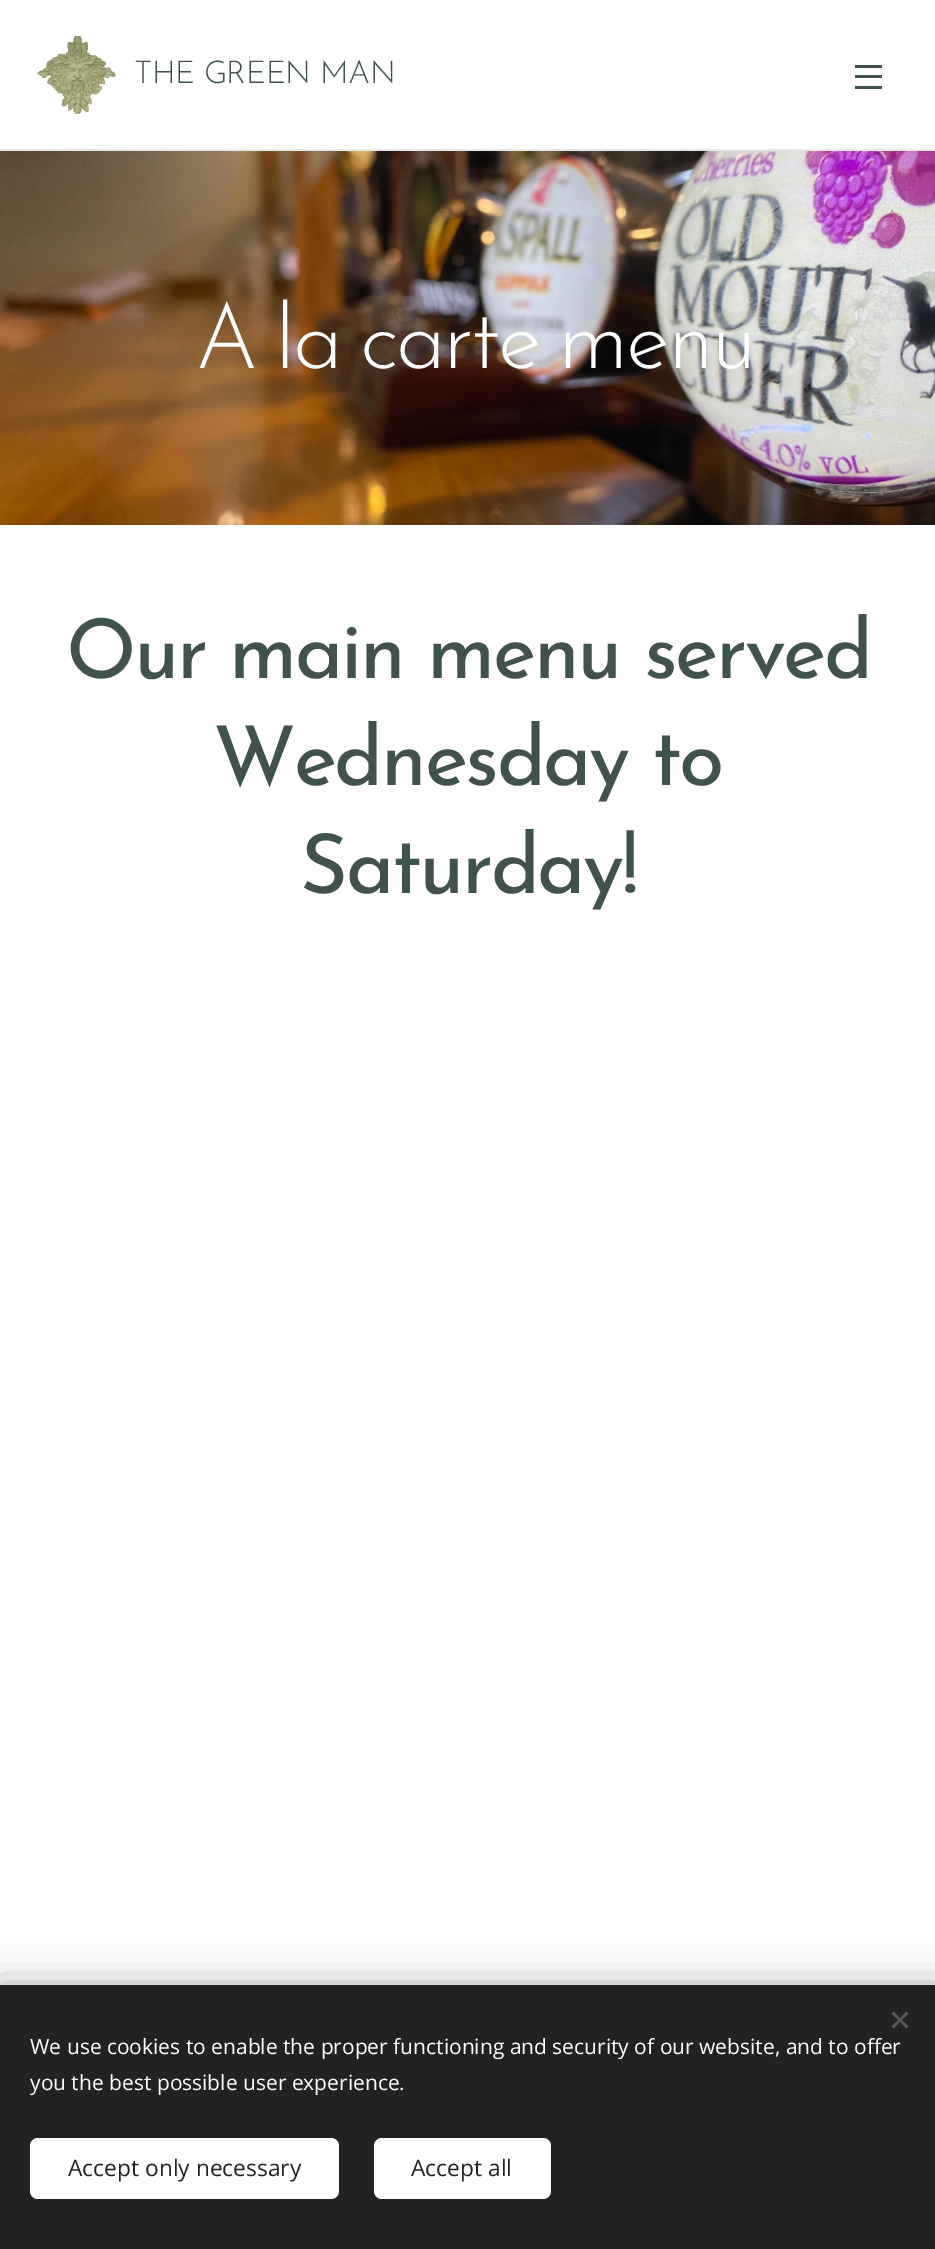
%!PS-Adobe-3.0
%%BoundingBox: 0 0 935 2249
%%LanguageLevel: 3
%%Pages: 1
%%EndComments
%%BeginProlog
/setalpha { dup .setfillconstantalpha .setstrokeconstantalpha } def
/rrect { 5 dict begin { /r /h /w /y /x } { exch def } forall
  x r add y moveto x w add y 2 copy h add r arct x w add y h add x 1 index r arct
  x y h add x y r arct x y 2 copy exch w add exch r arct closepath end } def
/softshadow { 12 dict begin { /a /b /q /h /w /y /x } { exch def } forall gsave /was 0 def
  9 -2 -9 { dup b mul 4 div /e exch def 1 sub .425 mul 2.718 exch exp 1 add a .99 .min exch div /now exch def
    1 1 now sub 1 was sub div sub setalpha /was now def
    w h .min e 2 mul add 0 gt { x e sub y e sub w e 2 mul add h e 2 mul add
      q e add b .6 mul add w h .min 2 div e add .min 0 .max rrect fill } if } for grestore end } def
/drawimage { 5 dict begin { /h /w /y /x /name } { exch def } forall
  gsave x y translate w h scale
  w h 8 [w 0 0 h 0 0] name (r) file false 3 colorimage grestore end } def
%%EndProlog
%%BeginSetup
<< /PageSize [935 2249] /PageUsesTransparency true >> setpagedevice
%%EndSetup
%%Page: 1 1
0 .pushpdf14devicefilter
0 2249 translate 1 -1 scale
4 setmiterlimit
1 setgray
0 0 935 2249 rectfill
(images/1.raw) 37 36 79 78 drawimage
0.247 0.322 0.298 setrgbcolor
855 75 27 3 rectfill
855 65 27 3 rectfill
855 86 27 3 rectfill
0.91 setgray
0 149 935 2 rectfill
(images/2.raw) 0 151 935 374 drawimage
0 setgray
0 1985 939 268 0 19 0.33 softshadow
0.133 setgray
0 1985 935 264 rectfill
0.333 setgray
newpath 891.5 2026.5 moveto 906.5 2011.5 lineto 908.5 2013.5 lineto 893.5 2028.5 lineto closepath fill
newpath 893.5 2011.5 moveto 908.5 2026.5 lineto 906.5 2028.5 lineto 891.5 2013.5 lineto closepath fill
1 setgray
30 2138 309 61 8 rrect fill
374 2138 177 61 8 rrect fill
/JosefinSans-Light [31.5 0 0 -31.5 0 0] selectfont
0.247 0.322 0.298 setrgbcolor
134 83 moveto -0.5 0 (THE GREEN MAN) ashow
/JosefinSans-Light [90 0 0 -90 0 0] selectfont
1 setgray
195 368 moveto -5.5 0 32 -2.75 0 (A la carte menu) awidthshow
/JosefinSans-Regular [82.5 0 0 -82.5 0 0] selectfont
0.247 0.322 0.298 setrgbcolor
66 678 moveto -2.5 0 (Our main menu served) ashow
213 785 moveto -2.5 0 (Wednesday to) ashow
300 893 moveto -2.5 0 (Saturday!) ashow
/OpenSans-Regular [21 0 0 -21 0 0] selectfont
1 setgray
30 2054 moveto (We use cookies to enable the proper functioning and security of our website, and to offer) show
30 2090 moveto (you the best possible user experience.) show
/OpenSans-Regular [22.75 0 0 -22.75 0 0] selectfont
0.133 setgray
68 2176 moveto (Accept only necessary) show
411 2176 moveto (Accept all) show
.poppdf14devicefilter showpage
%%EOF
